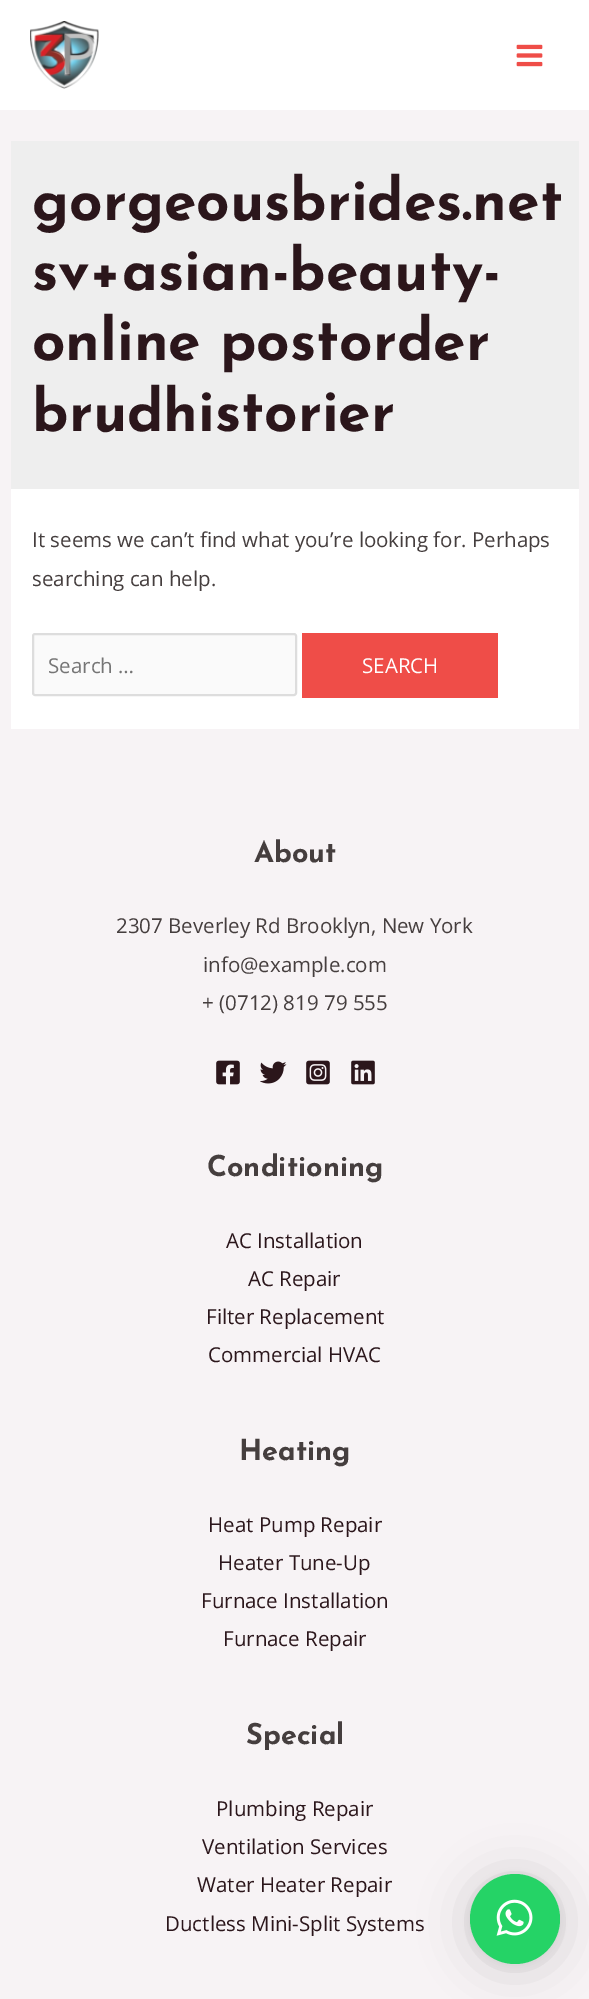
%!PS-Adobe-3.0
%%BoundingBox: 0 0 589 1999
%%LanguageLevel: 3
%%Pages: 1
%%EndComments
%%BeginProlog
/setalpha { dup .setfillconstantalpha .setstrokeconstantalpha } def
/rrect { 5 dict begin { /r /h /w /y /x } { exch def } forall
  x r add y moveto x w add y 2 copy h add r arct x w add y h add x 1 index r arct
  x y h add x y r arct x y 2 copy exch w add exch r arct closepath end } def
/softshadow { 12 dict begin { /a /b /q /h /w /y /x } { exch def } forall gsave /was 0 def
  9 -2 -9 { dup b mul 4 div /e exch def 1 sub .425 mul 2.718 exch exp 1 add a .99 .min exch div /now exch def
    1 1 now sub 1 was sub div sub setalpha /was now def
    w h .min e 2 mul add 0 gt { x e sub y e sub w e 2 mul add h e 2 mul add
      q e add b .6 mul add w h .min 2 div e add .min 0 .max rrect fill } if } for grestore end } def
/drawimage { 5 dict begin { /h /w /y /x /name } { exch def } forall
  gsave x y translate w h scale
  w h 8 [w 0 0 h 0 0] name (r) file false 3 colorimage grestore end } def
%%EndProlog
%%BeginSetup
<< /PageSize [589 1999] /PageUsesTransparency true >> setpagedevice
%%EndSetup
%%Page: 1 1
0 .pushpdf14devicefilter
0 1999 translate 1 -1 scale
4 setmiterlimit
0.969 0.953 0.961 setrgbcolor
0 0 589 1999 rectfill
1 setgray
0 0 589 110 rectfill
(images/1.raw) 30 21 69 68 drawimage
(images/2.raw) 516 44 27 23 drawimage
0.933 setgray
11 141 568 348 rectfill
1 setgray
11 489 568 240 rectfill
0.98 setgray
33 634 263 61 2 rrect gsave fill grestore
0.867 setgray
2 setlinewidth
stroke
0.937 0.302 0.282 setrgbcolor
302 633 196 65 rectfill
(images/3.raw) 216 1060 24 25 drawimage
(images/4.raw) 260 1061 27 23 drawimage
(images/5.raw) 306 1060 24 25 drawimage
(images/6.raw) 351 1060 24 25 drawimage
0 setgray
470 1877 90 90 45 24 0.16 softshadow
470 1875 90 90 45 4.5 0.06 softshadow
0.145 0.827 0.4 setrgbcolor
newpath 515 1919 45 0 360 arc closepath fill
(images/7.raw) 496 1899 37 37 drawimage
/JosefinSans-Thin [58.6 0 0 -58.6 0 0] selectfont
0.169 0.086 0.106 setrgbcolor
32 220 moveto (gorgeousbrides.net) show
32 290 moveto (sv+asian-beauty-) show
32 360 moveto (online postorder) show
32 431 moveto (brudhistorier) show
/OpenSans-Regular [20.5 0 0 -20.5 0 0] selectfont
0.271 0.243 0.243 setrgbcolor
32 547 moveto (It seems we can’t find what you’re looking for. Perhaps) show
32 586 moveto (searching can help.) show
0.459 setgray
48 673 moveto (Search …) show
1 setgray
362 673 moveto (SEARCH) show
/JosefinSans-Thin [28.75 0 0 -28.75 0 0] selectfont
0.271 0.243 0.243 setrgbcolor
254 862 moveto (About) show
/OpenSans-Regular [20.5 0 0 -20.5 0 0] selectfont
116 933 moveto (2307 Beverley Rd Brooklyn, New York) show
203 972 moveto (info@example.com) show
202 1010 moveto (+ \(0712\) 819 79 555) show
/JosefinSans-Thin [28.75 0 0 -28.75 0 0] selectfont
207 1176 moveto (Conditioning) show
/OpenSans-Regular [20.5 0 0 -20.5 0 0] selectfont
0.169 0.086 0.106 setrgbcolor
226 1248 moveto (AC Installation) show
248 1286 moveto (AC Repair) show
206 1324 moveto (Filter Replacement) show
208 1362 moveto (Commercial HVAC) show
/JosefinSans-Thin [28.75 0 0 -28.75 0 0] selectfont
0.271 0.243 0.243 setrgbcolor
239 1460 moveto (Heating) show
/OpenSans-Regular [20.5 0 0 -20.5 0 0] selectfont
0.169 0.086 0.106 setrgbcolor
208 1532 moveto (Heat Pump Repair) show
218 1570 moveto (Heater Tune-Up) show
201 1608 moveto (Furnace Installation) show
223 1646 moveto (Furnace Repair) show
/JosefinSans-Thin [28.75 0 0 -28.75 0 0] selectfont
0.271 0.243 0.243 setrgbcolor
246 1744 moveto (Special) show
/OpenSans-Regular [20.5 0 0 -20.5 0 0] selectfont
0.169 0.086 0.106 setrgbcolor
216 1816 moveto (Plumbing Repair) show
202 1854 moveto (Ventilation Services) show
197 1892 moveto (Water Heater Repair) show
165 1931 moveto (Ductless Mini-Split Systems) show
.poppdf14devicefilter showpage
%%EOF
